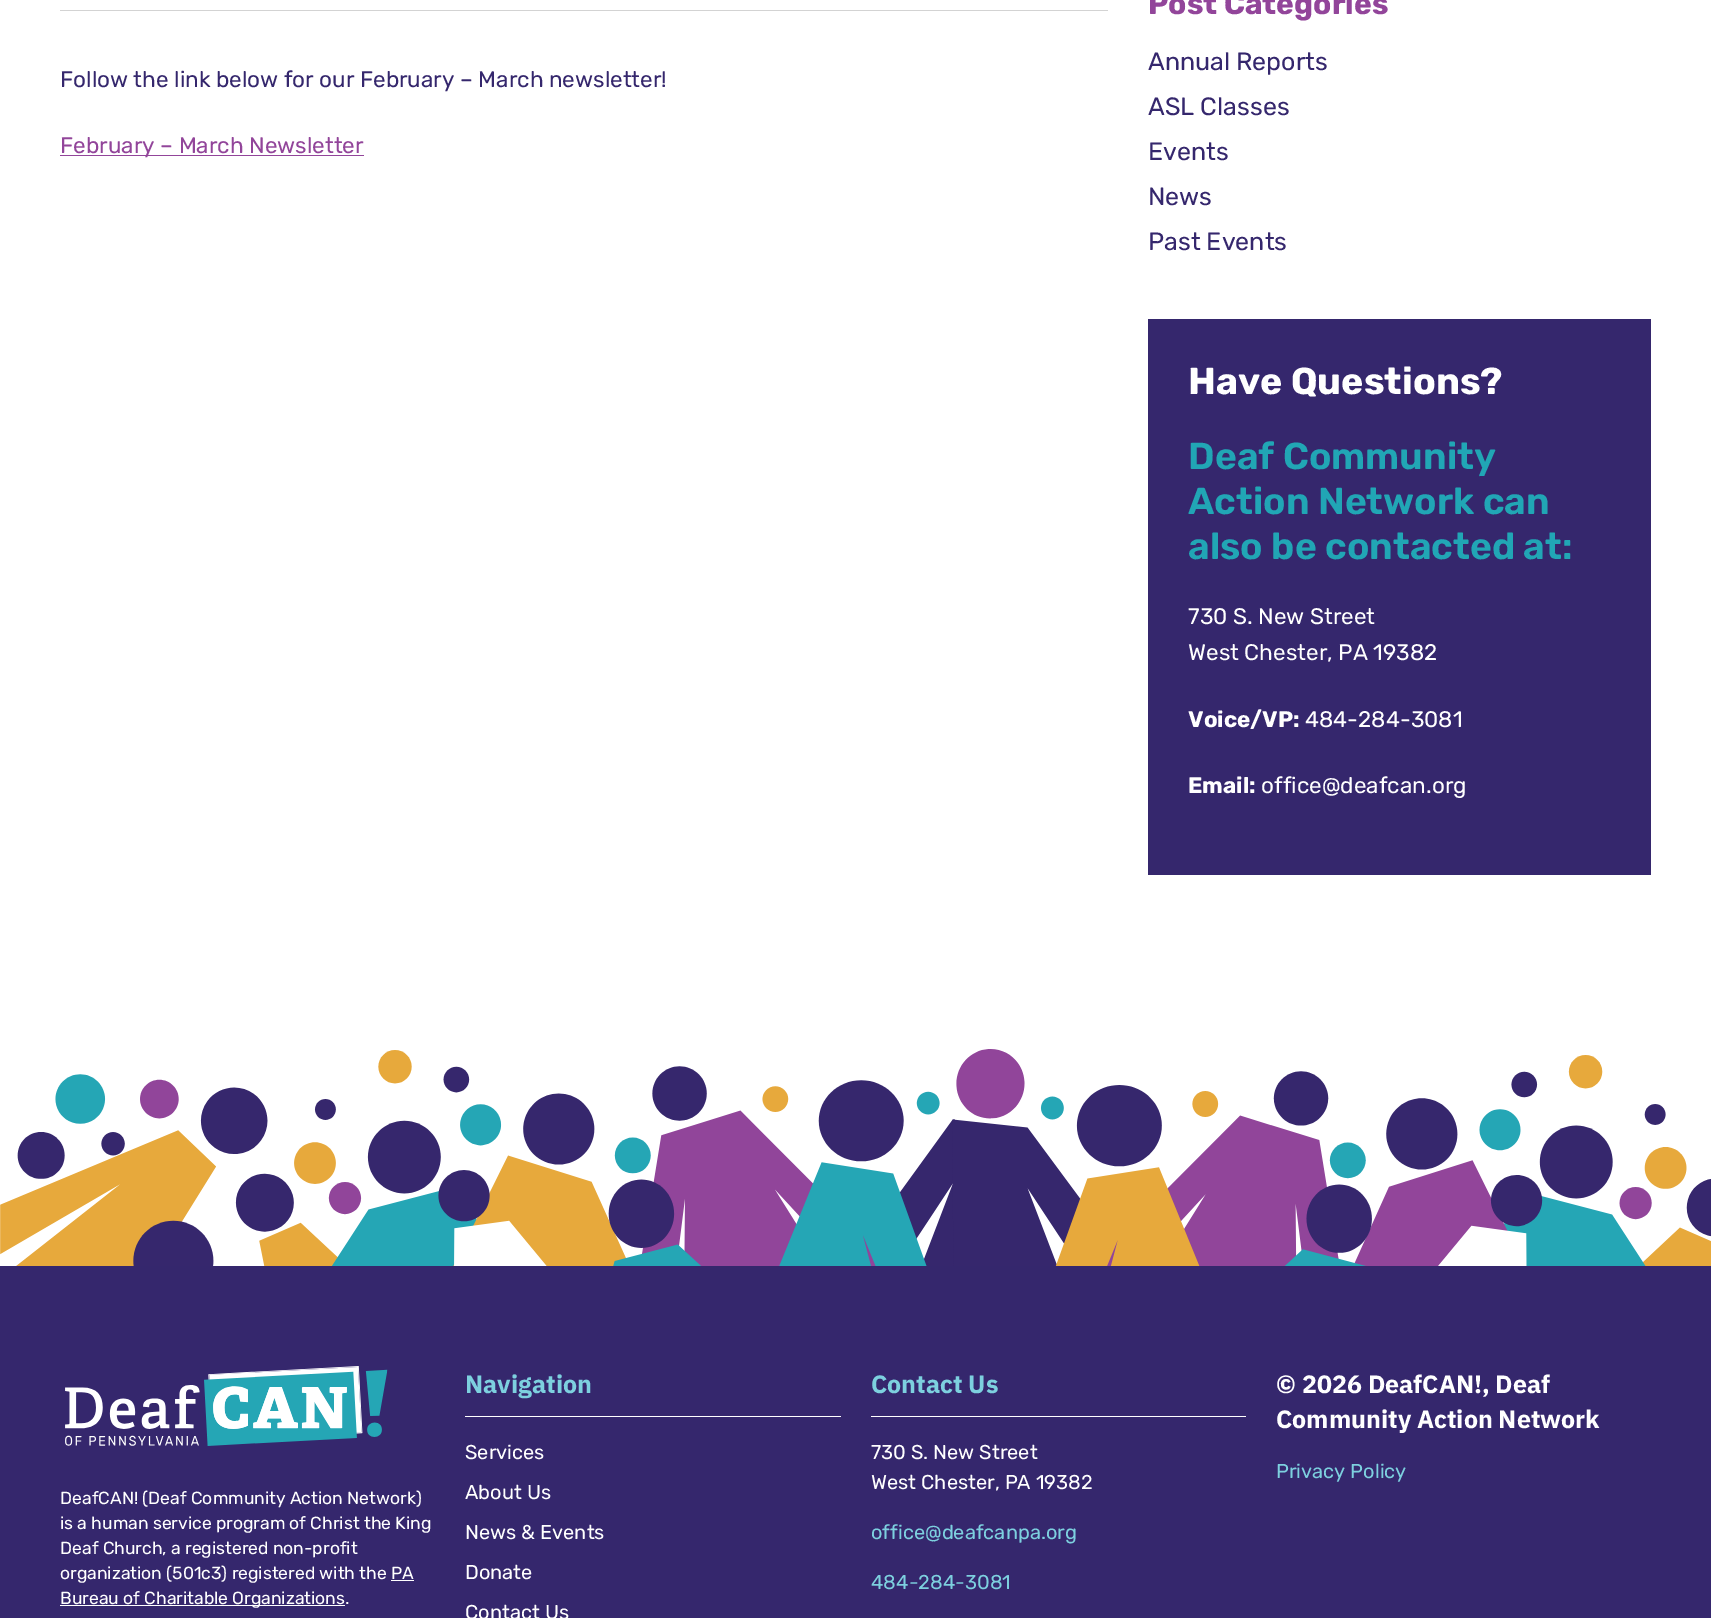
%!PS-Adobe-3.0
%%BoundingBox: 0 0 1711 1618
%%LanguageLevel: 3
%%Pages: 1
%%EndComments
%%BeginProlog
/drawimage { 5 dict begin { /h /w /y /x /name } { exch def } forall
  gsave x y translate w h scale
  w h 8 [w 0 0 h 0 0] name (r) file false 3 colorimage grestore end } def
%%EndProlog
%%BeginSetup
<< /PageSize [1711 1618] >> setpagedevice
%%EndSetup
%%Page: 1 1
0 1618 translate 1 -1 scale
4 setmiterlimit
1 setgray
0 0 1711 1618 rectfill
0.827 setgray
60 10 1048 1 rectfill
0.573 0.271 0.604 setrgbcolor
60 155 304 1 rectfill
0.208 0.153 0.427 setrgbcolor
1148 319 503 556 rectfill
(images/1.raw) 0 1049 1711 217 drawimage
0 1266 1711 352 rectfill
(images/2.raw) 65 1366 323 80 drawimage
1 setgray
391 1580 23 1 rectfill
60 1605 285 1 rectfill
465 1416 376 1 rectfill
871 1416 375 1 rectfill
/Rubik-Regular [22.5 0 0 -22.5 0 0] selectfont
0.208 0.153 0.427 setrgbcolor
60 87 moveto (Follow the link below for our February – March newsletter!) show
0.573 0.271 0.604 setrgbcolor
60 153 moveto (February – March Newsletter) show
/Rubik-Bold [30 0 0 -30 0 0] selectfont
1148 14 moveto (Post Categories) show
/Rubik-Regular [25 0 0 -25 0 0] selectfont
0.208 0.153 0.427 setrgbcolor
1148 70 moveto (Annual Reports) show
1148 115 moveto (ASL Classes) show
1148 160 moveto (Events) show
1148 205 moveto (News) show
1148 250 moveto (Past Events) show
/Rubik-Bold [37.5 0 0 -37.5 0 0] selectfont
1 setgray
1188 394 moveto (Have Questions?) show
/Rubik-SemiBold [37.5 0 0 -37.5 0 0] selectfont
0.129 0.651 0.71 setrgbcolor
1188 469 moveto (Deaf Community) show
1188 514 moveto (Action Network can) show
1188 559 moveto (also be contacted at:) show
/Rubik-Regular [22.5 0 0 -22.5 0 0] selectfont
1 setgray
1188 624 moveto (730 S. New Street) show
1188 660 moveto (West Chester, PA 19382) show
/Rubik-Bold [22.5 0 0 -22.5 0 0] selectfont
1188 727 moveto (Voice/VP:) show
/Rubik-Regular [22.5 0 0 -22.5 0 0] selectfont
1305 727 moveto (484-284-3081) show
/Rubik-Bold [22.5 0 0 -22.5 0 0] selectfont
1188 793 moveto (Email:) show
/Rubik-Regular [22.5 0 0 -22.5 0 0] selectfont
1261 793 moveto (office@deafcan.org) show
/Rubik-Regular [17.5 0 0 -17.5 0 0] selectfont
60 1504 moveto (DeafCAN! \(Deaf Community Action Network\)) show
60 1529 moveto (is a human service program of Christ the King) show
60 1554 moveto (Deaf Church, a registered non-profit) show
60 1579 moveto (organization \(501c3\) registered with the PA) show
60 1604 moveto (Bureau of Charitable Organizations.) show
/IBMPlexSans-Bold [25 0 0 -25 0 0] selectfont
0.49 0.816 0.875 setrgbcolor
465 1393 moveto (Navigation) show
/Rubik-Regular [20 0 0 -20 0 0] selectfont
1 setgray
465 1459 moveto (Services) show
465 1499 moveto (About Us) show
465 1539 moveto (News & Events) show
465 1579 moveto (Donate) show
465 1619 moveto (Contact Us) show
/IBMPlexSans-Bold [25 0 0 -25 0 0] selectfont
0.49 0.816 0.875 setrgbcolor
871 1393 moveto (Contact Us) show
/Rubik-Regular [20 0 0 -20 0 0] selectfont
1 setgray
871 1459 moveto (730 S. New Street) show
871 1489 moveto (West Chester, PA 19382) show
0.49 0.816 0.875 setrgbcolor
871 1539 moveto (office@deafcanpa.org) show
871 1589 moveto (484-284-3081) show
/IBMPlexSans-Bold [25 0 0 -25 0 0] selectfont
1 setgray
1276 1393 moveto (© 2026 DeafCAN!, Deaf) show
1276 1428 moveto (Community Action Network) show
/Rubik-Regular [20 0 0 -20 0 0] selectfont
0.49 0.816 0.875 setrgbcolor
1276 1478 moveto (Privacy Policy) show
showpage
%%EOF
